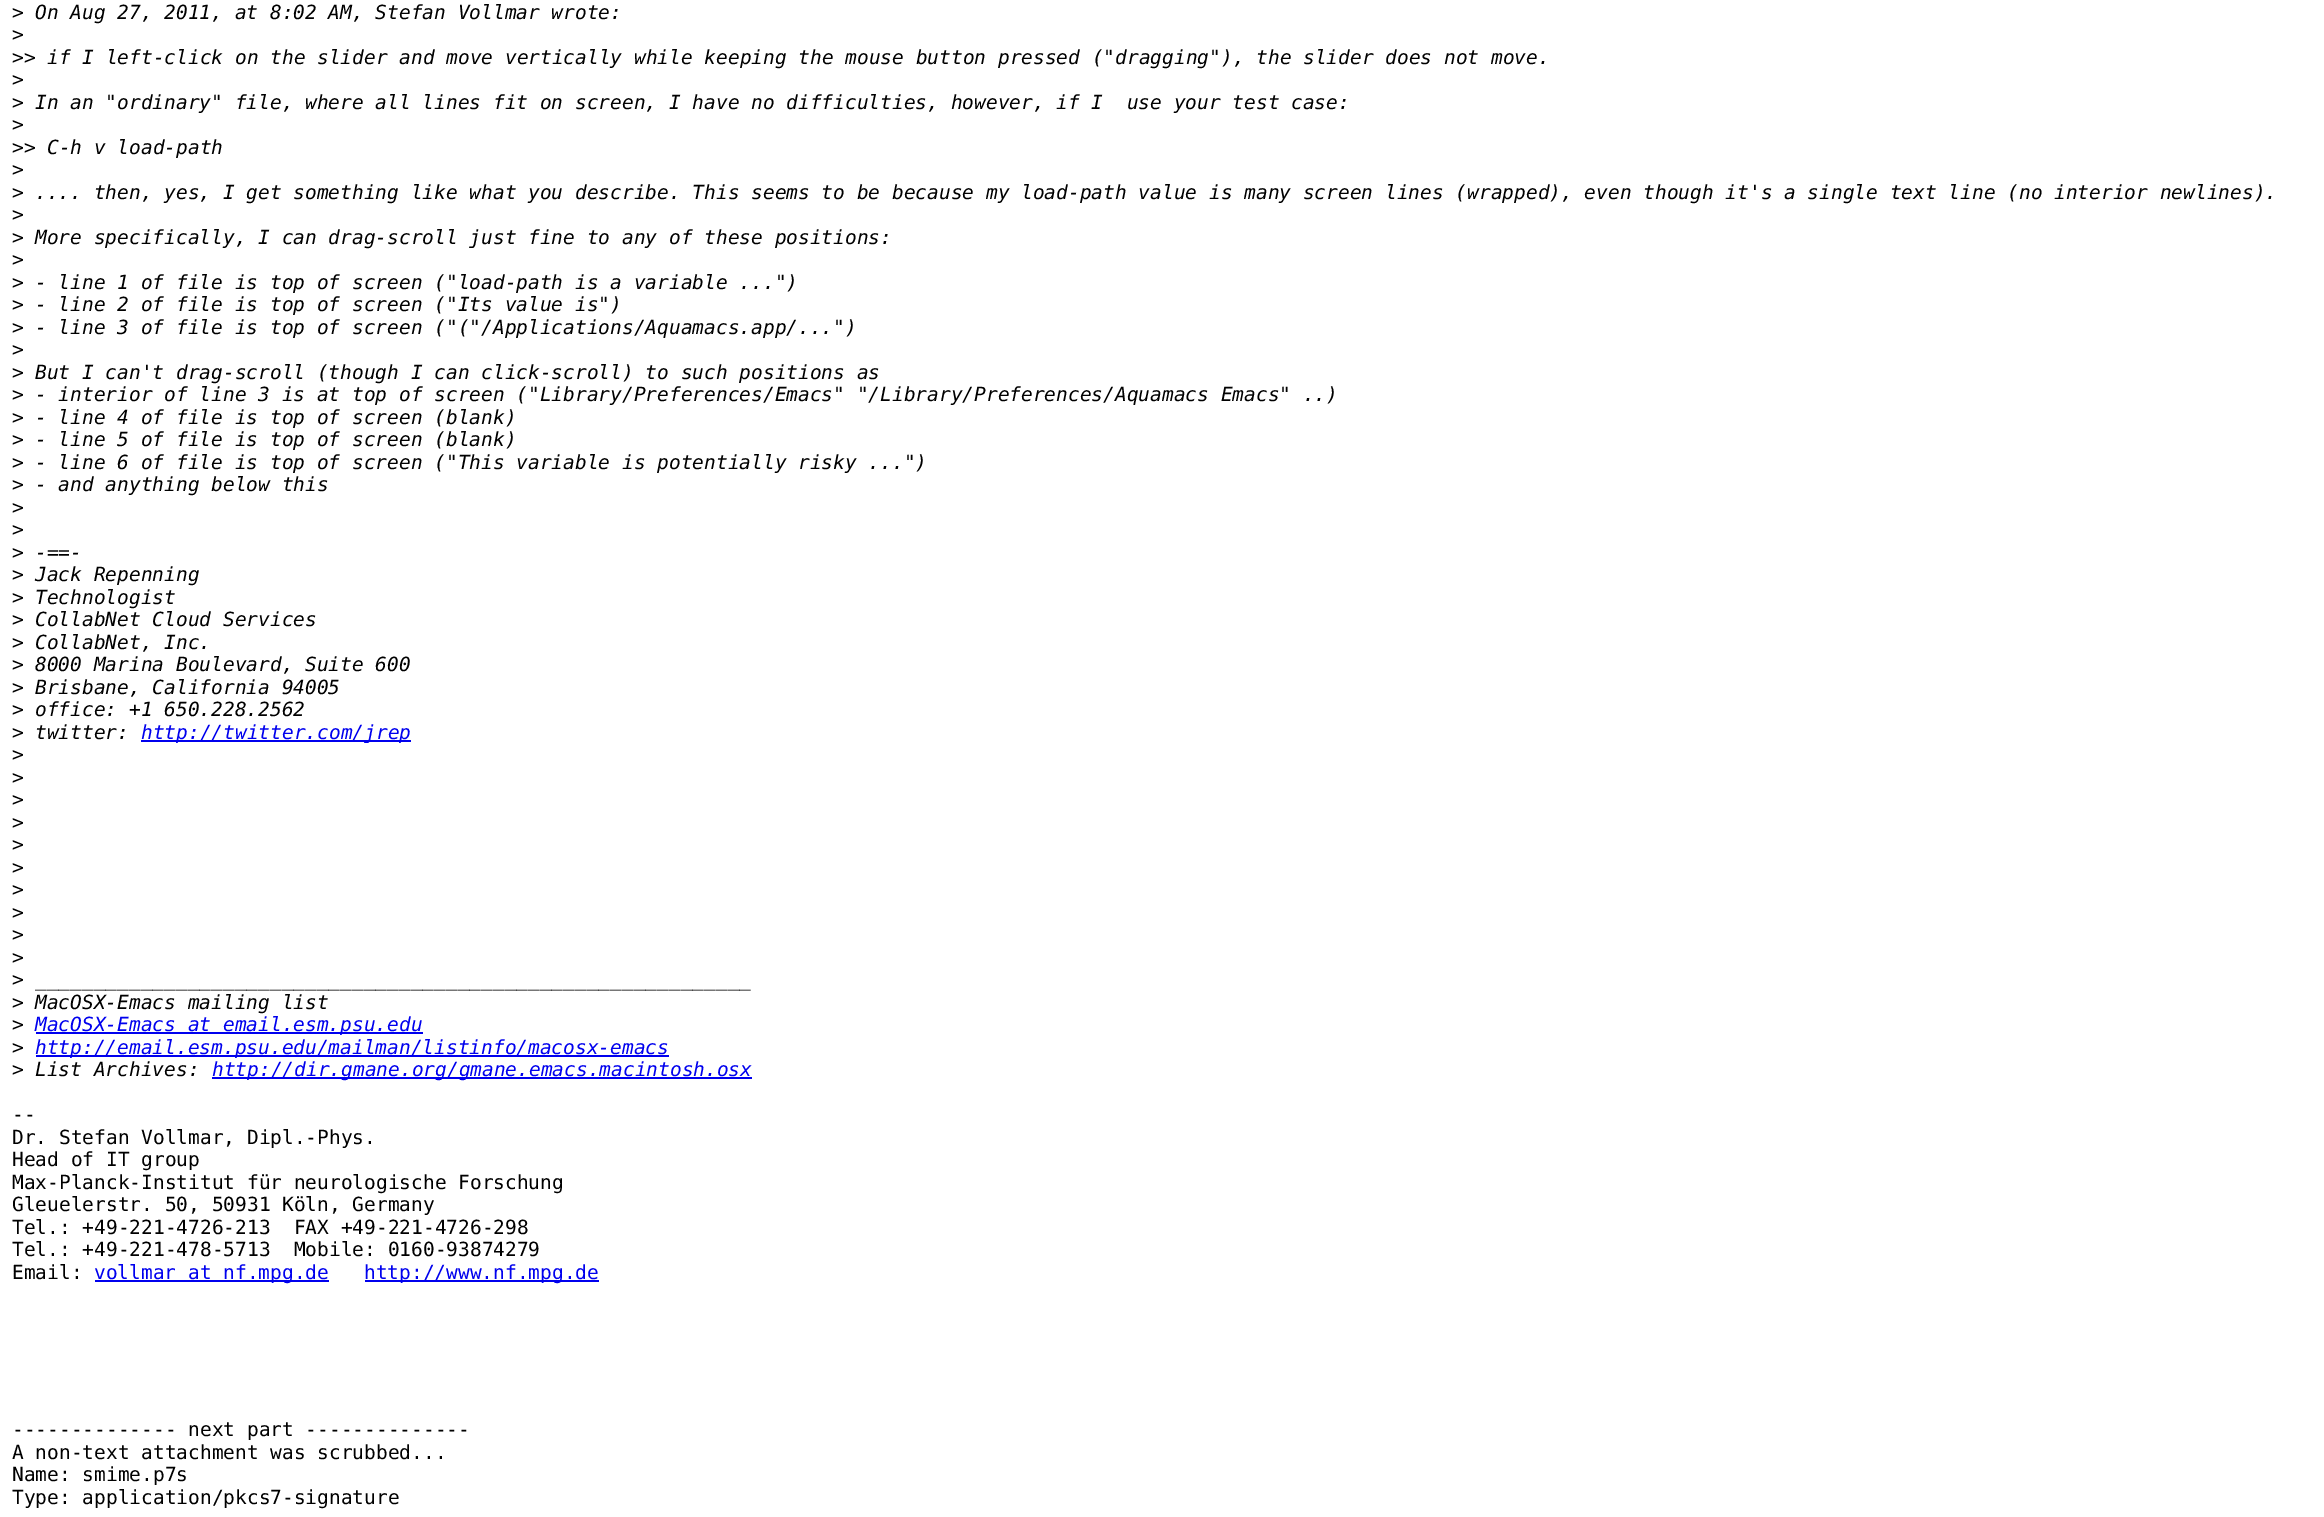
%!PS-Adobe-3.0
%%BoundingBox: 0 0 2324 1517
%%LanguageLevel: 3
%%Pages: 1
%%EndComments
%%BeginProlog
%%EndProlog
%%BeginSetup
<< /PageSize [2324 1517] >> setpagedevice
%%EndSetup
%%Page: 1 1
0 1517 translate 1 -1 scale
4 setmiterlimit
1 setgray
0 0 2324 1517 rectfill
0 0 0.933 setrgbcolor
141 740 270 2 rectfill
36 1032 387 2 rectfill
36 1055 633 2 rectfill
212 1077 540 2 rectfill
95 1280 234 2 rectfill
365 1280 234 2 rectfill
/DejaVuSansMono-Regular [19.5 0 0 -19.5 0 0] selectfont
0 setgray
12 19 moveto (>) show
/DejaVuSansMono-Italic [19.5 0 0 -19.5 0 0] selectfont
35 19 moveto (On Aug 27, 2011, at 8:02 AM, Stefan Vollmar wrote:) show
/DejaVuSansMono-Regular [19.5 0 0 -19.5 0 0] selectfont
12 41 moveto (>) show
12 64 moveto (>>) show
/DejaVuSansMono-Italic [19.5 0 0 -19.5 0 0] selectfont
47 64 moveto (if I left-click on the slider and move vertically while keeping the mouse button pressed \("dragging"\), the slider does not move.) show
/DejaVuSansMono-Regular [19.5 0 0 -19.5 0 0] selectfont
12 86 moveto (>) show
12 109 moveto (>) show
/DejaVuSansMono-Italic [19.5 0 0 -19.5 0 0] selectfont
35 109 moveto (In an "ordinary" file, where all lines fit on screen, I have no difficulties, however, if I  use your test case:) show
/DejaVuSansMono-Regular [19.5 0 0 -19.5 0 0] selectfont
12 131 moveto (>) show
12 154 moveto (>>) show
/DejaVuSansMono-Italic [19.5 0 0 -19.5 0 0] selectfont
47 154 moveto (C-h v load-path) show
/DejaVuSansMono-Regular [19.5 0 0 -19.5 0 0] selectfont
12 176 moveto (>) show
12 199 moveto (>) show
/DejaVuSansMono-Italic [19.5 0 0 -19.5 0 0] selectfont
35 199 moveto (.... then, yes, I get something like what you describe. This seems to be because my load-path value is many screen lines \(wrapped\), even though it's a single text line \(no interior newlines\).) show
/DejaVuSansMono-Regular [19.5 0 0 -19.5 0 0] selectfont
12 221 moveto (>) show
12 244 moveto (>) show
/DejaVuSansMono-Italic [19.5 0 0 -19.5 0 0] selectfont
35 244 moveto (More specifically, I can drag-scroll just fine to any of these positions:) show
/DejaVuSansMono-Regular [19.5 0 0 -19.5 0 0] selectfont
12 266 moveto (>) show
12 289 moveto (>) show
/DejaVuSansMono-Italic [19.5 0 0 -19.5 0 0] selectfont
35 289 moveto (- line 1 of file is top of screen \("load-path is a variable ..."\)) show
/DejaVuSansMono-Regular [19.5 0 0 -19.5 0 0] selectfont
12 311 moveto (>) show
/DejaVuSansMono-Italic [19.5 0 0 -19.5 0 0] selectfont
35 311 moveto (- line 2 of file is top of screen \("Its value is"\)) show
/DejaVuSansMono-Regular [19.5 0 0 -19.5 0 0] selectfont
12 334 moveto (>) show
/DejaVuSansMono-Italic [19.5 0 0 -19.5 0 0] selectfont
35 334 moveto (- line 3 of file is top of screen \("\("/Applications/Aquamacs.app/..."\)) show
/DejaVuSansMono-Regular [19.5 0 0 -19.5 0 0] selectfont
12 356 moveto (>) show
12 379 moveto (>) show
/DejaVuSansMono-Italic [19.5 0 0 -19.5 0 0] selectfont
35 379 moveto (But I can't drag-scroll \(though I can click-scroll\) to such positions as) show
/DejaVuSansMono-Regular [19.5 0 0 -19.5 0 0] selectfont
12 401 moveto (>) show
/DejaVuSansMono-Italic [19.5 0 0 -19.5 0 0] selectfont
35 401 moveto (- interior of line 3 is at top of screen \("Library/Preferences/Emacs" "/Library/Preferences/Aquamacs Emacs" ..\)) show
/DejaVuSansMono-Regular [19.5 0 0 -19.5 0 0] selectfont
12 424 moveto (>) show
/DejaVuSansMono-Italic [19.5 0 0 -19.5 0 0] selectfont
35 424 moveto (- line 4 of file is top of screen \(blank\)) show
/DejaVuSansMono-Regular [19.5 0 0 -19.5 0 0] selectfont
12 446 moveto (>) show
/DejaVuSansMono-Italic [19.5 0 0 -19.5 0 0] selectfont
35 446 moveto (- line 5 of file is top of screen \(blank\)) show
/DejaVuSansMono-Regular [19.5 0 0 -19.5 0 0] selectfont
12 469 moveto (>) show
/DejaVuSansMono-Italic [19.5 0 0 -19.5 0 0] selectfont
35 469 moveto (- line 6 of file is top of screen \("This variable is potentially risky ..."\)) show
/DejaVuSansMono-Regular [19.5 0 0 -19.5 0 0] selectfont
12 491 moveto (>) show
/DejaVuSansMono-Italic [19.5 0 0 -19.5 0 0] selectfont
35 491 moveto (- and anything below this) show
/DejaVuSansMono-Regular [19.5 0 0 -19.5 0 0] selectfont
12 514 moveto (>) show
12 536 moveto (>) show
12 559 moveto (>) show
/DejaVuSansMono-Italic [19.5 0 0 -19.5 0 0] selectfont
35 559 moveto (-==-) show
/DejaVuSansMono-Regular [19.5 0 0 -19.5 0 0] selectfont
12 581 moveto (>) show
/DejaVuSansMono-Italic [19.5 0 0 -19.5 0 0] selectfont
35 581 moveto (Jack Repenning) show
/DejaVuSansMono-Regular [19.5 0 0 -19.5 0 0] selectfont
12 604 moveto (>) show
/DejaVuSansMono-Italic [19.5 0 0 -19.5 0 0] selectfont
35 604 moveto (Technologist) show
/DejaVuSansMono-Regular [19.5 0 0 -19.5 0 0] selectfont
12 626 moveto (>) show
/DejaVuSansMono-Italic [19.5 0 0 -19.5 0 0] selectfont
35 626 moveto (CollabNet Cloud Services) show
/DejaVuSansMono-Regular [19.5 0 0 -19.5 0 0] selectfont
12 649 moveto (>) show
/DejaVuSansMono-Italic [19.5 0 0 -19.5 0 0] selectfont
35 649 moveto (CollabNet, Inc.) show
/DejaVuSansMono-Regular [19.5 0 0 -19.5 0 0] selectfont
12 671 moveto (>) show
/DejaVuSansMono-Italic [19.5 0 0 -19.5 0 0] selectfont
35 671 moveto (8000 Marina Boulevard, Suite 600) show
/DejaVuSansMono-Regular [19.5 0 0 -19.5 0 0] selectfont
12 694 moveto (>) show
/DejaVuSansMono-Italic [19.5 0 0 -19.5 0 0] selectfont
35 694 moveto (Brisbane, California 94005) show
/DejaVuSansMono-Regular [19.5 0 0 -19.5 0 0] selectfont
12 716 moveto (>) show
/DejaVuSansMono-Italic [19.5 0 0 -19.5 0 0] selectfont
35 716 moveto (office: +1 650.228.2562) show
/DejaVuSansMono-Regular [19.5 0 0 -19.5 0 0] selectfont
12 739 moveto (>) show
/DejaVuSansMono-Italic [19.5 0 0 -19.5 0 0] selectfont
35 739 moveto (twitter:) show
0 0 0.933 setrgbcolor
141 739 moveto (http://twitter.com/jrep) show
/DejaVuSansMono-Regular [19.5 0 0 -19.5 0 0] selectfont
0 setgray
12 761 moveto (>) show
12 784 moveto (>) show
12 806 moveto (>) show
12 829 moveto (>) show
12 851 moveto (>) show
12 874 moveto (>) show
12 896 moveto (>) show
12 919 moveto (>) show
12 941 moveto (>) show
12 964 moveto (>) show
12 986 moveto (>) show
/DejaVuSansMono-Italic [19.5 0 0 -19.5 0 0] selectfont
35 986 moveto (_____________________________________________________________) show
/DejaVuSansMono-Regular [19.5 0 0 -19.5 0 0] selectfont
12 1009 moveto (>) show
/DejaVuSansMono-Italic [19.5 0 0 -19.5 0 0] selectfont
35 1009 moveto (MacOSX-Emacs mailing list) show
/DejaVuSansMono-Regular [19.5 0 0 -19.5 0 0] selectfont
12 1031 moveto (>) show
/DejaVuSansMono-Italic [19.5 0 0 -19.5 0 0] selectfont
0 0 0.933 setrgbcolor
35 1031 moveto (MacOSX-Emacs at email.esm.psu.edu) show
/DejaVuSansMono-Regular [19.5 0 0 -19.5 0 0] selectfont
0 setgray
12 1054 moveto (>) show
/DejaVuSansMono-Italic [19.5 0 0 -19.5 0 0] selectfont
0 0 0.933 setrgbcolor
35 1054 moveto (http://email.esm.psu.edu/mailman/listinfo/macosx-emacs) show
/DejaVuSansMono-Regular [19.5 0 0 -19.5 0 0] selectfont
0 setgray
12 1076 moveto (>) show
/DejaVuSansMono-Italic [19.5 0 0 -19.5 0 0] selectfont
35 1076 moveto (List Archives:) show
0 0 0.933 setrgbcolor
212 1076 moveto (http://dir.gmane.org/gmane.emacs.macintosh.osx) show
/DejaVuSansMono-Regular [19.5 0 0 -19.5 0 0] selectfont
0 setgray
12 1121 moveto (--) show
12 1144 moveto (Dr. Stefan Vollmar, Dipl.-Phys.) show
12 1166 moveto (Head of IT group) show
12 1189 moveto (Max-Planck-Institut für neurologische Forschung) show
12 1211 moveto (Gleuelerstr. 50, 50931 Köln, Germany) show
12 1234 moveto (Tel.: +49-221-4726-213  FAX +49-221-4726-298) show
12 1256 moveto (Tel.: +49-221-478-5713  Mobile: 0160-93874279) show
12 1279 moveto (Email:) show
0 0 0.933 setrgbcolor
94 1279 moveto (vollmar at nf.mpg.de) show
364 1279 moveto (http://www.nf.mpg.de) show
0 setgray
12 1436 moveto (-------------- next part --------------) show
12 1459 moveto (A non-text attachment was scrubbed...) show
12 1481 moveto (Name: smime.p7s) show
12 1504 moveto (Type: application/pkcs7-signature) show
showpage
%%EOF
